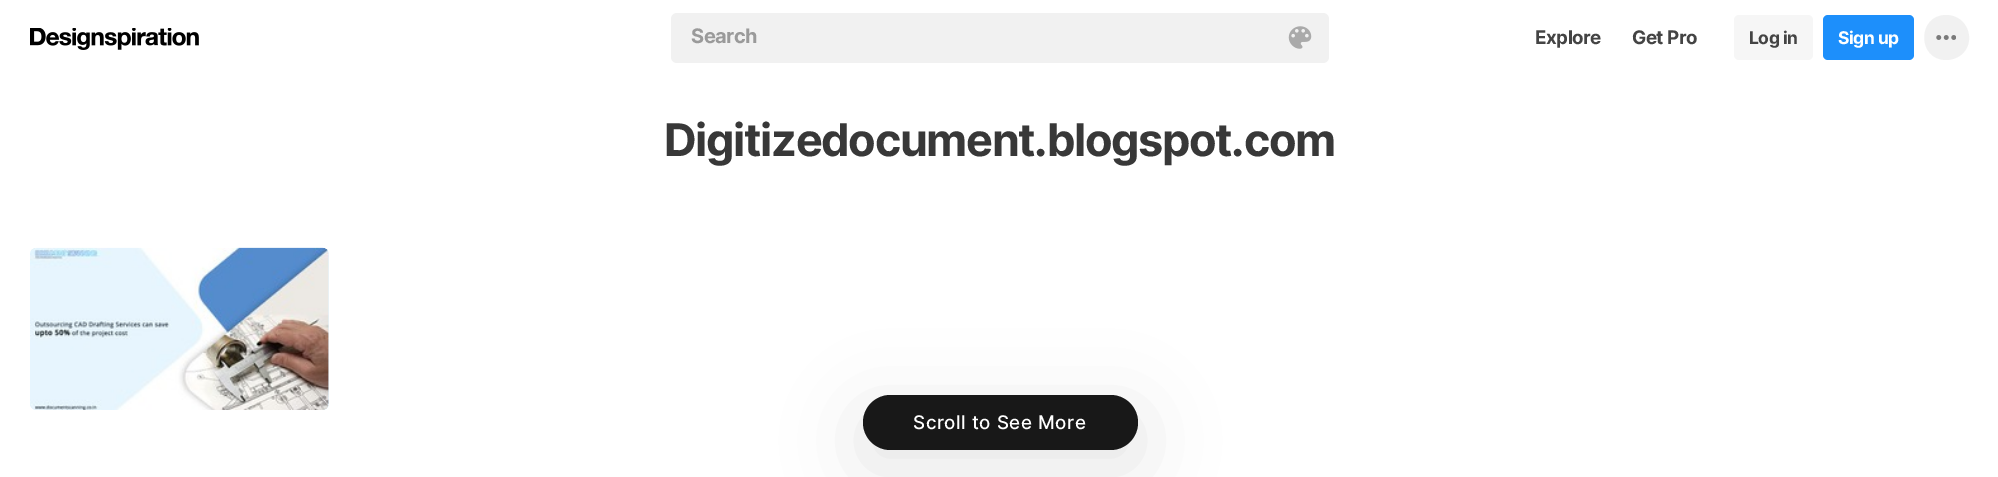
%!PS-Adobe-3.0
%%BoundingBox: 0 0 1998 477
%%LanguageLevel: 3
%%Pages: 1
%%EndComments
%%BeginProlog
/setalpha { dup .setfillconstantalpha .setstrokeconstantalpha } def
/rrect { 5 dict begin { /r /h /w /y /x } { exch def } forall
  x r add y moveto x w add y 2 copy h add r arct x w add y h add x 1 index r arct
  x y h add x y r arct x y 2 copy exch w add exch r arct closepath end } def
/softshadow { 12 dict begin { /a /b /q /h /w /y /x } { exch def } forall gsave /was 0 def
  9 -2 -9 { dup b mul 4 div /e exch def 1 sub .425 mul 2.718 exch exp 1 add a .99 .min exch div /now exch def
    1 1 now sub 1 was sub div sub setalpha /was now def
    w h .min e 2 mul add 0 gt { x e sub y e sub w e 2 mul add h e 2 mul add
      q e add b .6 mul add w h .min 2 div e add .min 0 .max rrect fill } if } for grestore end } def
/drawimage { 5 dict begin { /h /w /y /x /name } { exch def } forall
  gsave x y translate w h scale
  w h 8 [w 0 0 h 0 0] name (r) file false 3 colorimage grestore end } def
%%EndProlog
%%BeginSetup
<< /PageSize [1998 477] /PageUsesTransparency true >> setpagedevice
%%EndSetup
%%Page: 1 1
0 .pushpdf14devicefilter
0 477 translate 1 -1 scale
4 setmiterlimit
1 setgray
0 0 1998 477 rectfill
(images/1.raw) 30 28 169 22 drawimage
0.945 setgray
671 13 658 50 6 rrect fill
(images/2.raw) 1288 26 24 23 drawimage
0.965 setgray
1734 15 79 45 5 rrect fill
0.114 0.561 0.984 setrgbcolor
1823 15 91 45 5 rrect fill
0.945 setgray
newpath 1946 15 moveto 1968 15 1977 42 1961 55 curveto 1957 58 1952 60 1946 60 curveto 1917 60 1917 15 1946 15 curveto closepath fill
(images/3.raw) 1936 35 20 5 drawimage
0.906 0.961 0.996 setrgbcolor
30 248 299 162 6 rrect fill
(images/4.raw) 30 247 299 163 drawimage
0 setgray
863 413 275 55 27.5 37.5 0.1 softshadow
0.094 setgray
863 395 275 55 27.5 rrect fill
/Inter-Bold [20 0 0 -20 0 0] selectfont
0.604 setgray
691 43 moveto -0.5 0 (Search) ashow
/Inter-Bold [18.75 0 0 -18.75 0 0] selectfont
0.267 setgray
1535 44 moveto -0.5 0 (Explore) ashow
1632 44 moveto -0.5 0 (Get Pro) ashow
/Inter-Bold [17.5 0 0 -17.5 0 0] selectfont
1749 44 moveto -0.5 0 (Log in) ashow
1 setgray
1838 44 moveto -0.5 0 (Sign up) ashow
/Inter-Bold [45 0 0 -45 0 0] selectfont
0.22 setgray
664 156 moveto -1.35 0 (Digitizedocument.blogspot.com) ashow
/Inter-Medium [18.75 0 0 -18.75 0 0] selectfont
1 setgray
913 429 moveto 0.5 0 (Scroll to See More) ashow
.poppdf14devicefilter showpage
%%EOF
